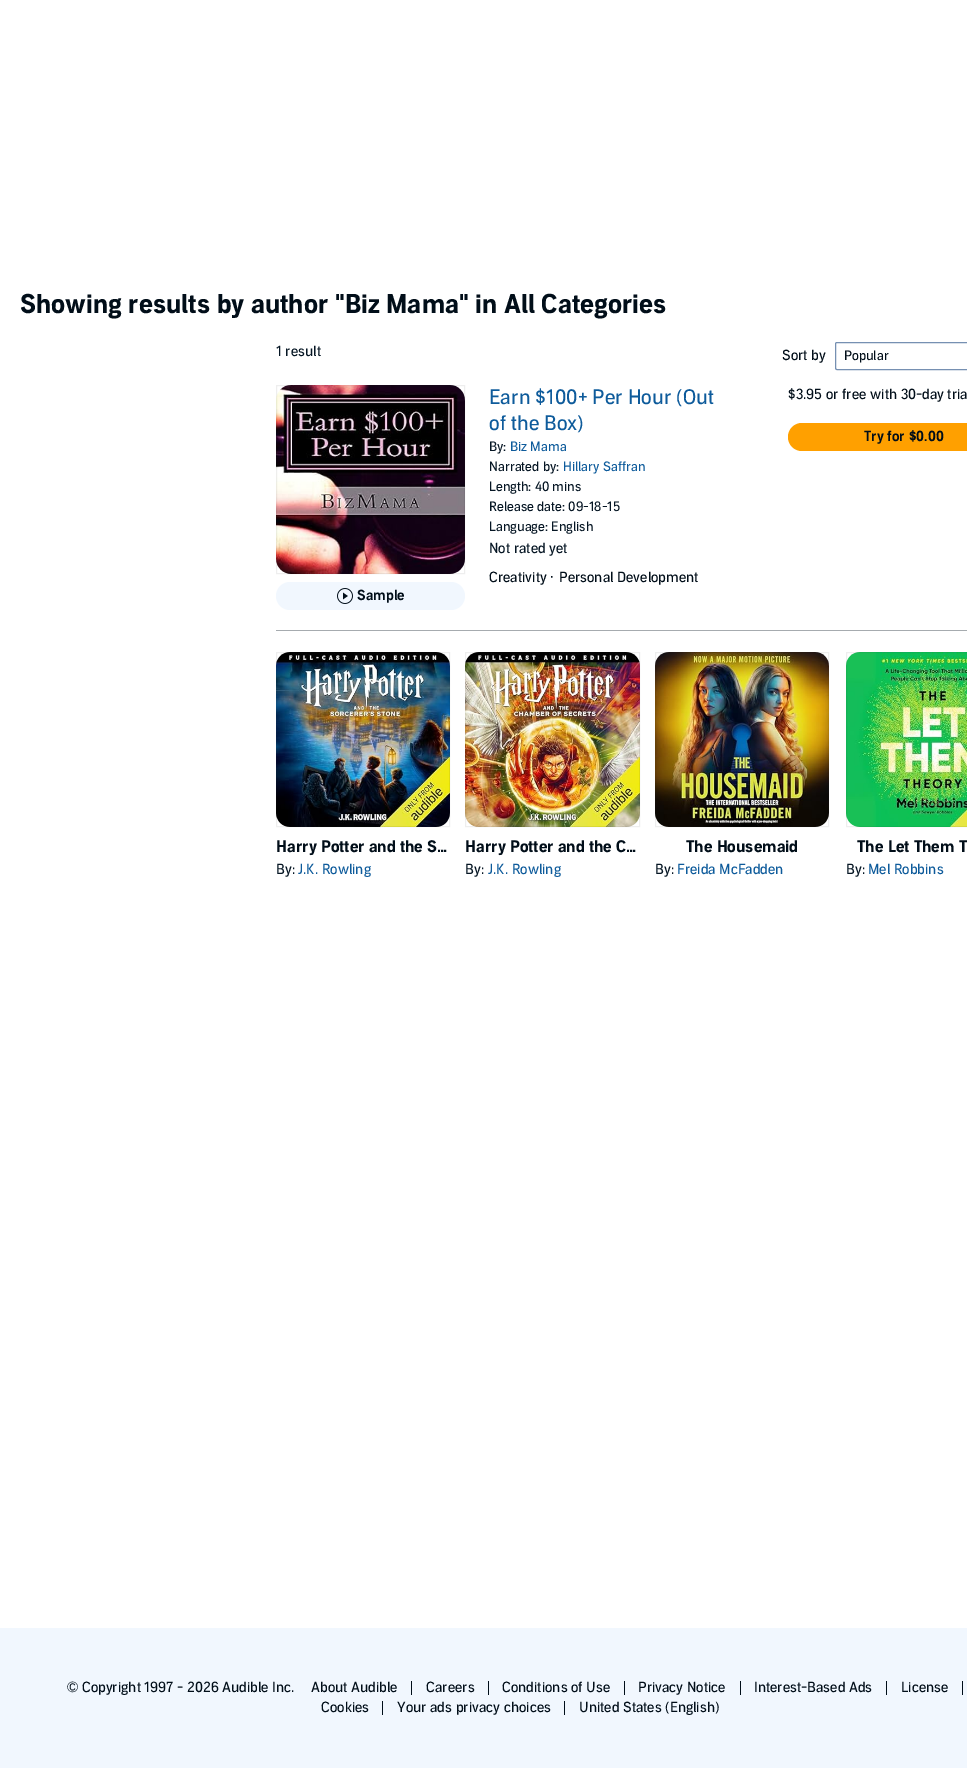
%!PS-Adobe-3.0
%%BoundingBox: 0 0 967 1768
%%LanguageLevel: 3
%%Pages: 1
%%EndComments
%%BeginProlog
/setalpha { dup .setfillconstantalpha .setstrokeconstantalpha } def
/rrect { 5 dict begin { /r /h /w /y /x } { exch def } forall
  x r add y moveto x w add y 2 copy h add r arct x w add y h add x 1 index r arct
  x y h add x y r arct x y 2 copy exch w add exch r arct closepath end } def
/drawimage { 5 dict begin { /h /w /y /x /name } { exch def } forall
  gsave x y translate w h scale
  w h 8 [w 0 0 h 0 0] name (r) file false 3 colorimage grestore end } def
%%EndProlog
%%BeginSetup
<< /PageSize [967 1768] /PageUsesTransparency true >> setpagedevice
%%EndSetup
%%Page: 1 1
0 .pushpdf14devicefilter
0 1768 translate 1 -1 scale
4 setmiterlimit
1 setgray
0 0 967 1768 rectfill
0.463 0.565 0.698 setrgbcolor
835.5 342.5 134 27 1.5 rrect stroke
(images/1.raw) 276 385 189 189 drawimage
0.08 setalpha
0.129 0.137 0.145 setrgbcolor
276.5 385.5 188 188 rectstroke
1 setalpha
0.945 0.969 0.996 setrgbcolor
276 582 189 28 14 rrect fill
(images/2.raw) 337 588 16 16 drawimage
1 0.627 0 setrgbcolor
788 423 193 28 14 rrect fill
0.651 0.671 0.686 setrgbcolor
276 630 691 1 rectfill
(images/3.raw) 276 652 174 175 drawimage
0.08 setalpha
0.129 0.137 0.145 setrgbcolor
276.5 652.5 173 174 rectstroke
1 setalpha
(images/4.raw) 465 652 175 175 drawimage
0.08 setalpha
465.5 652.5 174 174 rectstroke
1 setalpha
(images/5.raw) 655 652 174 175 drawimage
0.08 setalpha
655.5 652.5 173 174 rectstroke
1 setalpha
(images/6.raw) 846 652 121 175 drawimage
0.08 setalpha
846.5 652.5 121 174 rectstroke
1 setalpha
0.945 0.969 0.996 setrgbcolor
0 1628 967 140 rectfill
0.004 0.055 0.098 setrgbcolor
411 1681 1 14 rectfill
488 1681 1 14 rectfill
624 1681 1 14 rectfill
740 1681 1 14 rectfill
886 1681 1 14 rectfill
962 1681 1 14 rectfill
382 1701 1 14 rectfill
564 1701 1 14 rectfill
/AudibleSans-Bold [26 0 0 -26 0 0] selectfont
20 313 moveto (Showing results by author "Biz Mama" in All Categories) show
/AudibleSans-Regular [14 0 0 -14 0 0] selectfont
0.024 0.086 0.141 setrgbcolor
276 356 moveto (1 result) show
0.004 0.055 0.098 setrgbcolor
782 360 moveto (Sort by) show
/AudibleSans-Regular [13 0 0 -13 0 0] selectfont
844 360 moveto (Popular) show
/AudibleSans-Regular [20 0 0 -20 0 0] selectfont
0.055 0.357 0.608 setrgbcolor
489 404 moveto (Earn $100+ Per Hour \(Out) show
489 430 moveto (of the Box\)) show
/AudibleSans-Regular [13 0 0 -13 0 0] selectfont
0.024 0.086 0.141 setrgbcolor
489 451 moveto (By:) show
0.055 0.357 0.608 setrgbcolor
510 451 moveto (Biz Mama) show
0.024 0.086 0.141 setrgbcolor
489 471 moveto (Narrated by:) show
0.055 0.357 0.608 setrgbcolor
563 471 moveto (Hillary Saffran) show
0.024 0.086 0.141 setrgbcolor
489 491 moveto (Length: 40 mins) show
489 511 moveto (Release date: 09-18-15) show
489 531 moveto (Language: English) show
/AudibleSans-Regular [14 0 0 -14 0 0] selectfont
489 553 moveto (Not rated yet) show
0.004 0.055 0.098 setrgbcolor
489 582 moveto (Creativity ·) show
559 582 moveto (Personal Development) show
/AudibleSans-SemiBold [14 0 0 -14 0 0] selectfont
357 600 moveto (Sample) show
/AudibleSans-Regular [14 0 0 -14 0 0] selectfont
788 399 moveto ($3.95 or free with 30-day tria) show
/AudibleSans-SemiBold [14 0 0 -14 0 0] selectfont
864 441 moveto (Try for $0.00) show
/AudibleSans-Bold [16 0 0 -16 0 0] selectfont
276 852 moveto (Harry Potter and the S…) show
/AudibleSans-Regular [14 0 0 -14 0 0] selectfont
0.024 0.086 0.141 setrgbcolor
276 874 moveto (By:) show
0.055 0.357 0.608 setrgbcolor
298 874 moveto (J.K. Rowling) show
/AudibleSans-Bold [16 0 0 -16 0 0] selectfont
0.004 0.055 0.098 setrgbcolor
465 852 moveto (Harry Potter and the C…) show
/AudibleSans-Regular [14 0 0 -14 0 0] selectfont
0.024 0.086 0.141 setrgbcolor
465 874 moveto (By:) show
0.055 0.357 0.608 setrgbcolor
488 874 moveto (J.K. Rowling) show
/AudibleSans-Bold [16 0 0 -16 0 0] selectfont
0.004 0.055 0.098 setrgbcolor
686 852 moveto (The Housemaid) show
/AudibleSans-Regular [14 0 0 -14 0 0] selectfont
0.024 0.086 0.141 setrgbcolor
655 874 moveto (By:) show
0.055 0.357 0.608 setrgbcolor
677 874 moveto (Freida McFadden) show
/AudibleSans-Bold [16 0 0 -16 0 0] selectfont
0.004 0.055 0.098 setrgbcolor
857 852 moveto (The Let Them T) show
/AudibleSans-Regular [14 0 0 -14 0 0] selectfont
0.024 0.086 0.141 setrgbcolor
846 874 moveto (By:) show
0.055 0.357 0.608 setrgbcolor
868 874 moveto (Mel Robbins) show
0.004 0.055 0.098 setrgbcolor
67 1692 moveto (© Copyright 1997 - 2026 Audible Inc.) show
311 1692 moveto (About Audible) show
426 1692 moveto (Careers) show
502 1692 moveto (Conditions of Use) show
638 1692 moveto (Privacy Notice) show
754 1692 moveto (Interest-Based Ads) show
901 1692 moveto (License) show
321 1712 moveto (Cookies) show
397 1712 moveto (Your ads privacy choices) show
579 1712 moveto (United States \(English\)) show
.poppdf14devicefilter showpage
%%EOF
